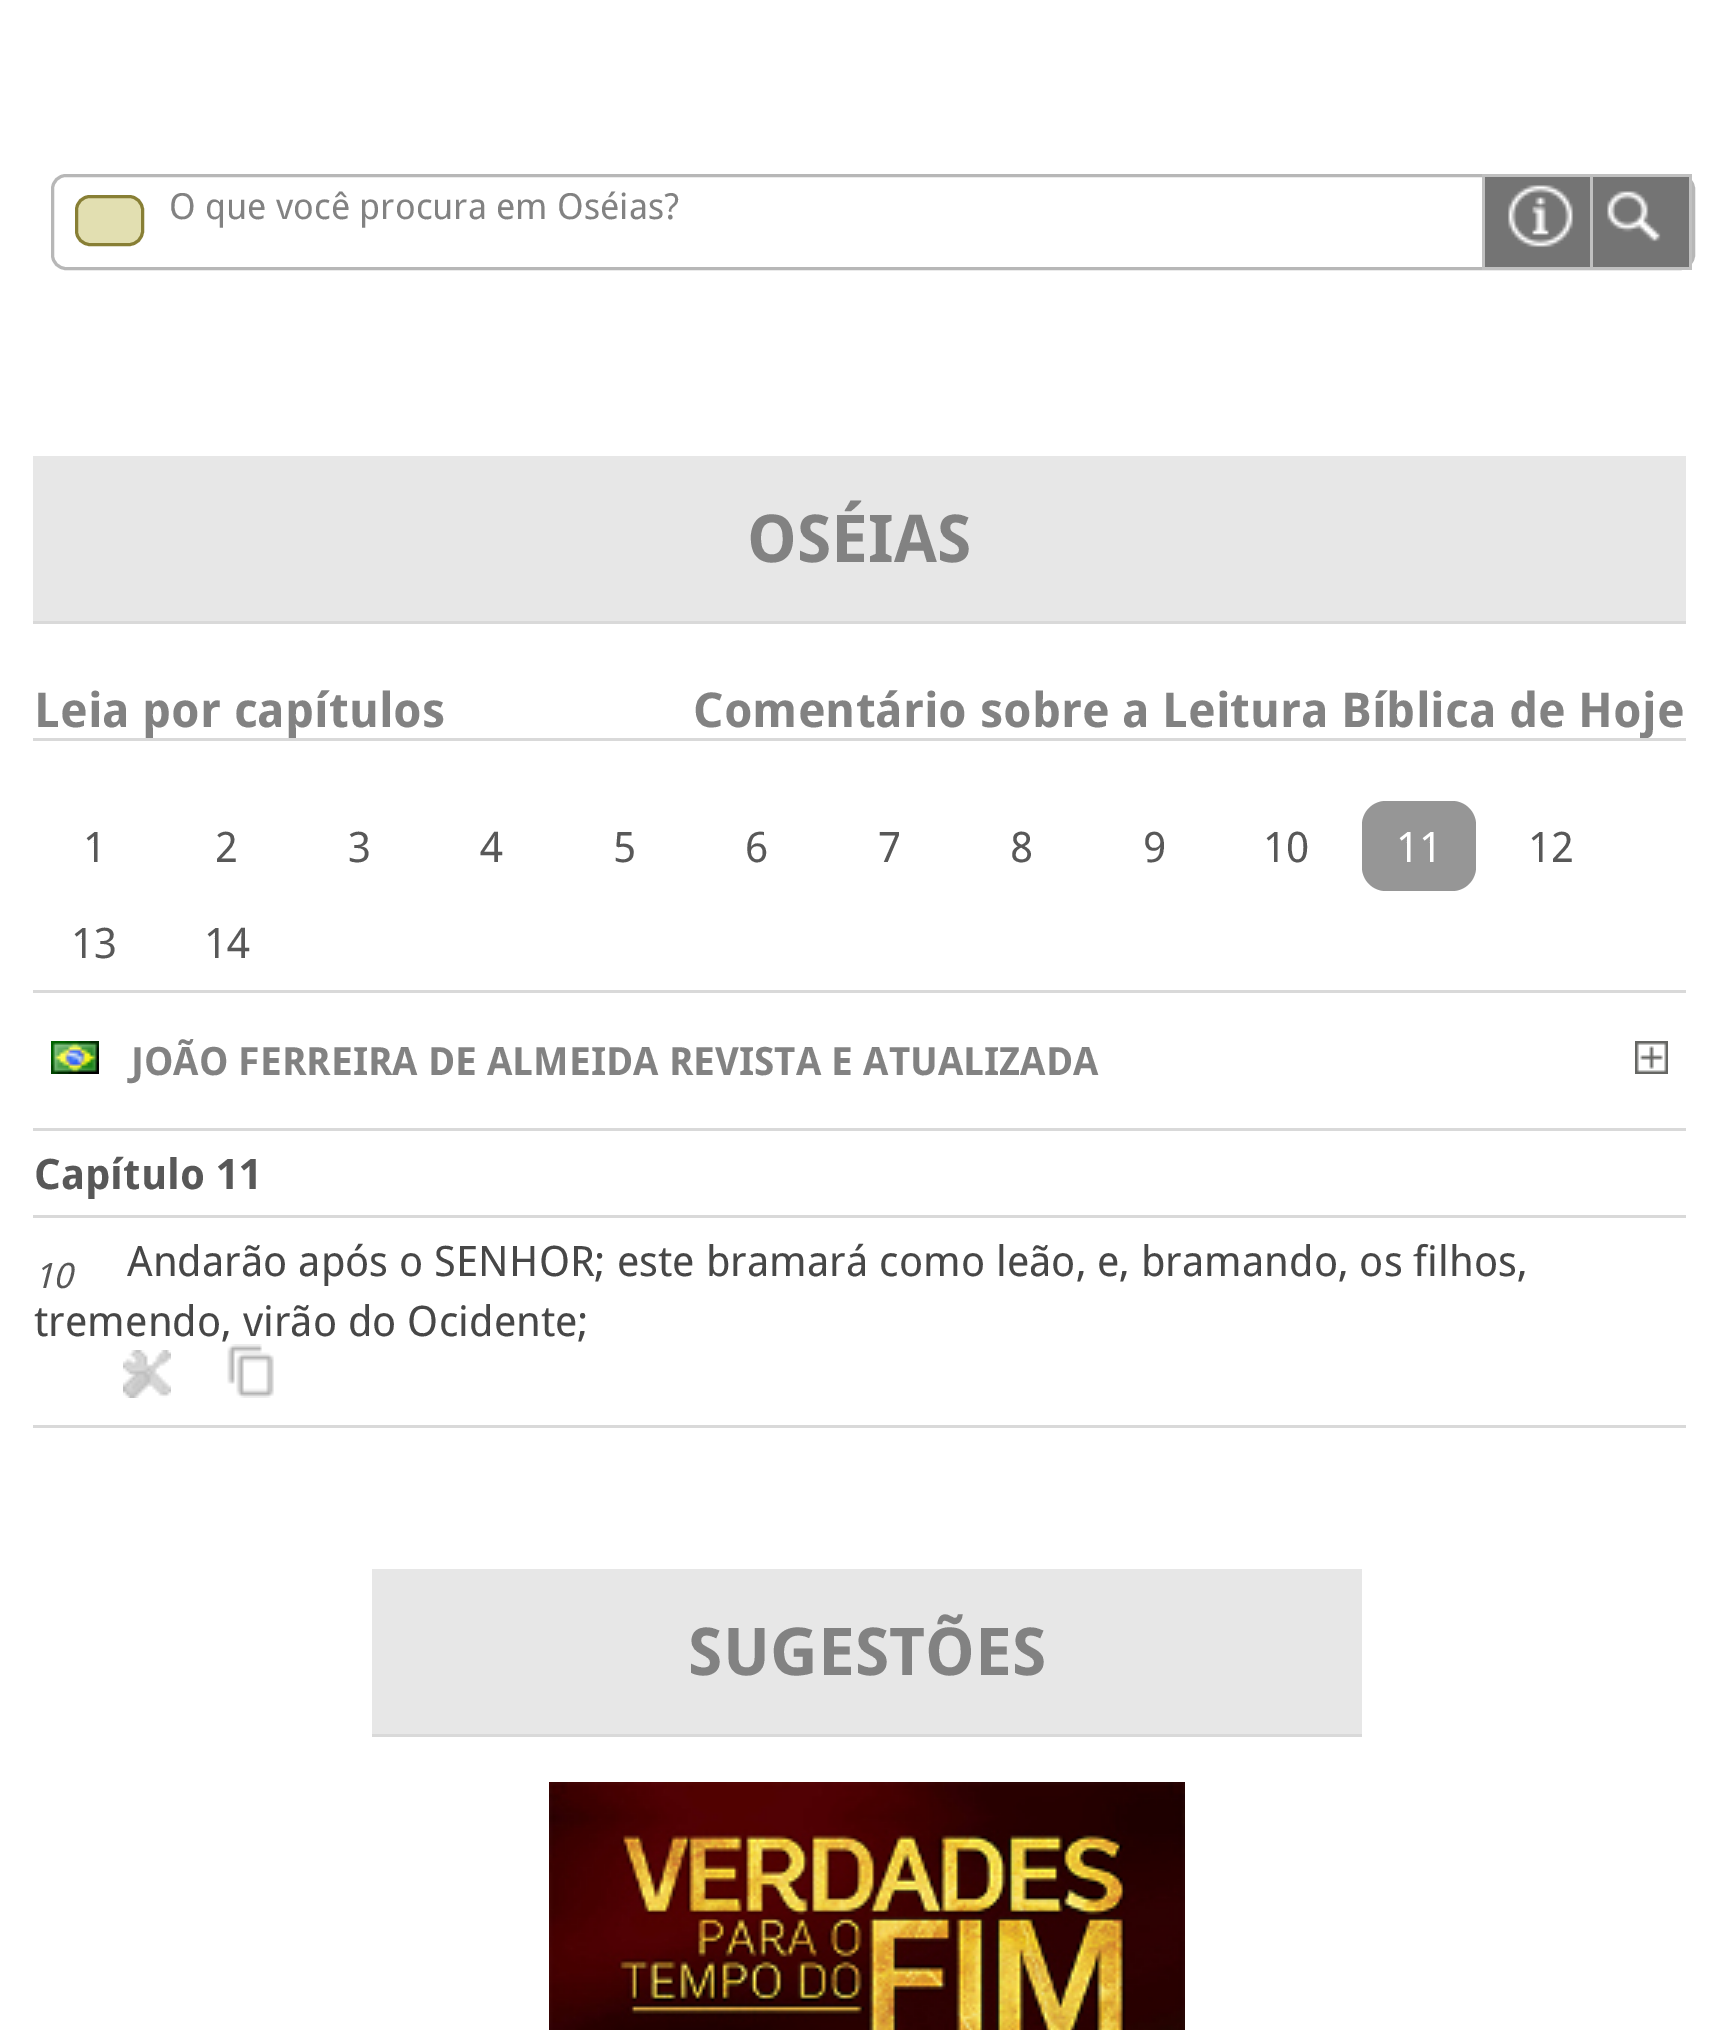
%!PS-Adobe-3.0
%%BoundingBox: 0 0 1719 2030
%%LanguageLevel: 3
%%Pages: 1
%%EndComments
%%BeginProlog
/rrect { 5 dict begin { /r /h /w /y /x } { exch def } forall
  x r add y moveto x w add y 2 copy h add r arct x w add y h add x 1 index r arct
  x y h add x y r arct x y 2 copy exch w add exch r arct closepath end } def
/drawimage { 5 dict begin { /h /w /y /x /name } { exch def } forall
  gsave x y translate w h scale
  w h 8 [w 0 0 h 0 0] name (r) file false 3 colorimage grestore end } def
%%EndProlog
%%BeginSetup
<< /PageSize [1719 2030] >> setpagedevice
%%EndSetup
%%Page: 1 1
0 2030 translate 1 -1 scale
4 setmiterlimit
1 setgray
0 0 1719 2030 rectfill
0.718 setgray
3 setlinewidth
52.5 175.5 1641 93 13.5 rrect stroke
0.886 0.875 0.694 setrgbcolor
76.5 196.5 66 48 13.5 rrect gsave fill grestore
0.533 0.498 0.208 setrgbcolor
stroke
0.455 setgray
1485 177 105 90 rectfill
(images/1.raw) 1482 174 111 96 drawimage
1593 177 96 90 rectfill
(images/2.raw) 1593 174 99 96 drawimage
0.906 setgray
33 456 1653 165 rectfill
0.851 setgray
33 621 1653 3 rectfill
33 738 1653 3 rectfill
33 990 1653 3 rectfill
0.588 setgray
1362 801 114 90 24 rrect fill
0.851 setgray
33 1128 1653 3 rectfill
(images/3.raw) 51 1041 48 33 drawimage
(images/4.raw) 1635 1041 33 33 drawimage
33 1215 1653 3 rectfill
33 1425 1653 3 rectfill
(images/5.raw) 123 1350 48 48 drawimage
(images/6.raw) 227 1344 47 54 drawimage
0.906 setgray
372 1569 990 165 rectfill
0.851 setgray
372 1734 990 3 rectfill
(images/7.raw) 549 1782 636 248 drawimage
/DroidSans-Regular [36 0 0 -36 0 0] selectfont
0.51 setgray
169 219 moveto (O que você procura em Oséias?) show
/DroidSans-Bold [66 0 0 -66 0 0] selectfont
747 562 moveto (OSÉIAS) show
gsave
33 681 1653 57 rectclip
/DroidSans-Bold [48 0 0 -48 0 0] selectfont
34 727 moveto (Leia por capítulos) show
693 727 moveto (Comentário sobre a Leitura Bíblica de Hoje) show
grestore
/DroidSans-Regular [42 0 0 -42 0 0] selectfont
0.345 setgray
83 862 moveto (1) show
215 862 moveto (2) show
348 862 moveto (3) show
480 862 moveto (4) show
613 862 moveto (5) show
745 862 moveto (6) show
878 862 moveto (7) show
1010 862 moveto (8) show
1143 862 moveto (9) show
1263 862 moveto (10) show
1 setgray
1396 862 moveto (11) show
0.345 setgray
1528 862 moveto (12) show
71 958 moveto (13) show
204 958 moveto (14) show
/DroidSans-Bold [39 0 0 -39 0 0] selectfont
0.51 setgray
131 1075 moveto (JOÃO FERREIRA DE ALMEIDA REVISTA E ATUALIZADA) show
/DroidSans-Bold [42 0 0 -42 0 0] selectfont
0.345 setgray
34 1189 moveto (Capítulo 11) show
/DroidSans-Italic [35 0 0 -35 0 0] selectfont
34 1288 moveto (10) show
/DroidSans-Regular [42 0 0 -42 0 0] selectfont
0.278 setgray
127 1276 moveto (Andarão após o SENHOR; este bramará como leão, e, bramando, os filhos,) show
34 1336 moveto (tremendo, virão do Ocidente;) show
/DroidSans-Bold [66 0 0 -66 0 0] selectfont
0.51 setgray
688 1675 moveto (SUGESTÕES) show
showpage
%%EOF
